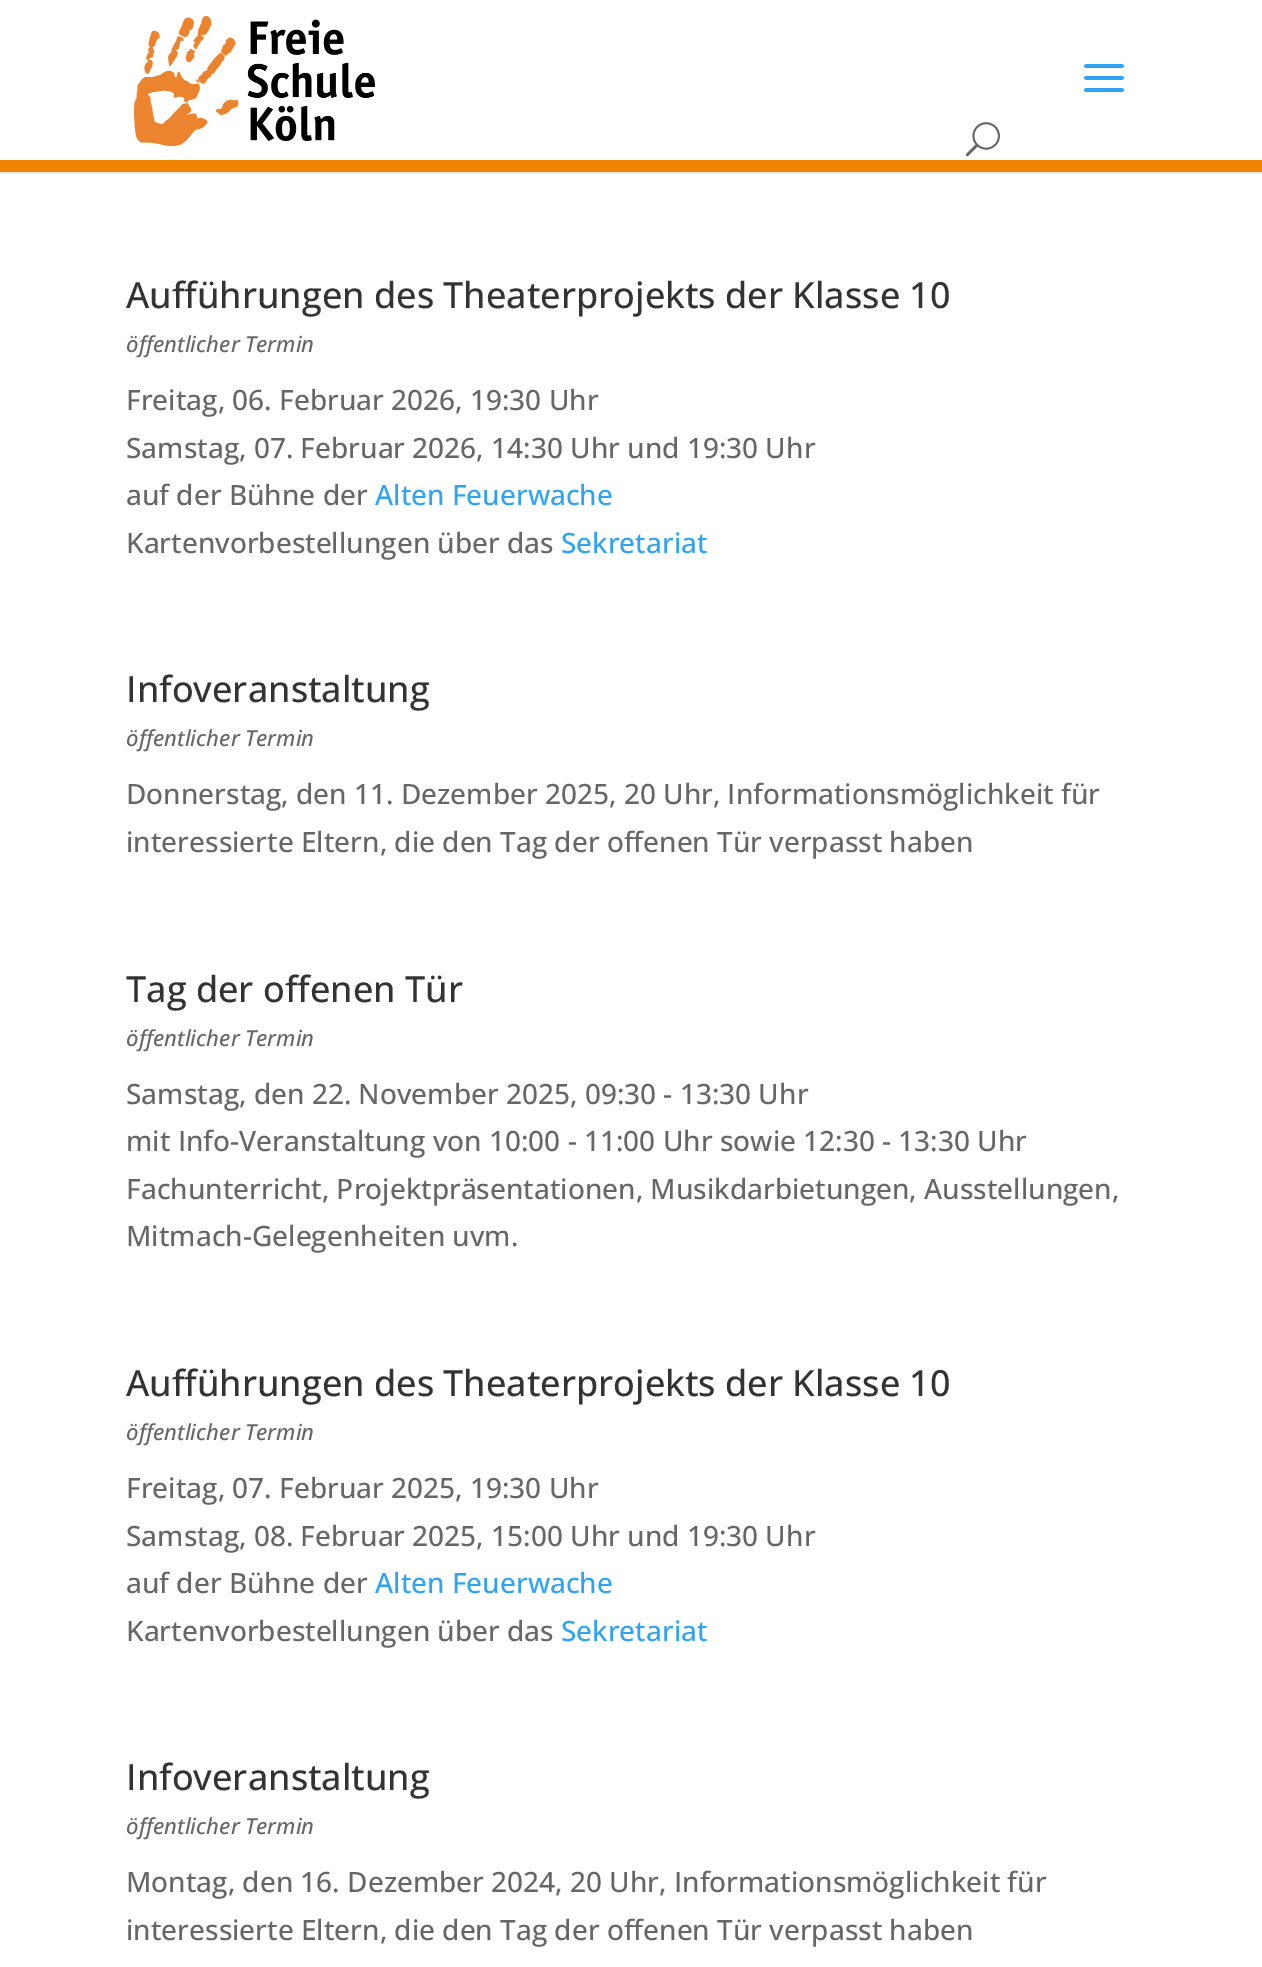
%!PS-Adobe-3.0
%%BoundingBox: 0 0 1262 1967
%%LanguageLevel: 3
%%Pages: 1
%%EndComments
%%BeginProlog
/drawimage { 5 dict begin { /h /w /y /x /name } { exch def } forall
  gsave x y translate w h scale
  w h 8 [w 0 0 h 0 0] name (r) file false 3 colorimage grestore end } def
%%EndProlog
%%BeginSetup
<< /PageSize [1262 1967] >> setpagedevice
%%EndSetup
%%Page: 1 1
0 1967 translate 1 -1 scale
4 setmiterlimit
1 setgray
0 0 1262 1967 rectfill
0.902 setgray
0 172 1262 2 rectfill
0.941 0.514 0 setrgbcolor
0 160 1262 12 rectfill
(images/1.raw) 134 16 242 130 drawimage
(images/2.raw) 1084 64 40 28 drawimage
(images/3.raw) 965 122 35 35 drawimage
/OpenSans-Medium [36 0 0 -36 0 0] selectfont
0.2 setgray
126 308 moveto (Aufführungen des Theaterprojekts der Klasse 10) show
/OpenSans-MediumItalic [22 0 0 -22 0 0] selectfont
0.4 setgray
126 352 moveto (öffentlicher Termin) show
/OpenSans-Medium [28 0 0 -28 0 0] selectfont
126 410 moveto (Freitag, 06. Februar 2026, 19:30 Uhr) show
126 458 moveto (Samstag, 07. Februar 2026, 14:30 Uhr und 19:30 Uhr) show
126 505 moveto (auf der Bühne der) show
0.18 0.639 0.949 setrgbcolor
375 505 moveto (Alten Feuerwache) show
0.4 setgray
126 553 moveto (Kartenvorbestellungen über das) show
0.18 0.639 0.949 setrgbcolor
561 553 moveto (Sekretariat) show
/OpenSans-Medium [36 0 0 -36 0 0] selectfont
0.2 setgray
126 702 moveto (Infoveranstaltung) show
/OpenSans-MediumItalic [22 0 0 -22 0 0] selectfont
0.4 setgray
126 746 moveto (öffentlicher Termin) show
/OpenSans-Medium [28 0 0 -28 0 0] selectfont
126 804 moveto (Donnerstag, den 11. Dezember 2025, 20 Uhr, Informationsmöglichkeit für) show
126 852 moveto (interessierte Eltern, die den Tag der offenen Tür verpasst haben) show
/OpenSans-Medium [36 0 0 -36 0 0] selectfont
0.2 setgray
126 1002 moveto (Tag der offenen Tür) show
/OpenSans-MediumItalic [22 0 0 -22 0 0] selectfont
0.4 setgray
126 1046 moveto (öffentlicher Termin) show
/OpenSans-Medium [28 0 0 -28 0 0] selectfont
126 1104 moveto (Samstag, den 22. November 2025, 09:30 - 13:30 Uhr) show
126 1151 moveto (mit Info-Veranstaltung von 10:00 - 11:00 Uhr sowie 12:30 - 13:30 Uhr) show
126 1199 moveto (Fachunterricht, Projektpräsentationen, Musikdarbietungen, Ausstellungen,) show
126 1246 moveto (Mitmach-Gelegenheiten uvm.) show
/OpenSans-Medium [36 0 0 -36 0 0] selectfont
0.2 setgray
126 1396 moveto (Aufführungen des Theaterprojekts der Klasse 10) show
/OpenSans-MediumItalic [22 0 0 -22 0 0] selectfont
0.4 setgray
126 1440 moveto (öffentlicher Termin) show
/OpenSans-Medium [28 0 0 -28 0 0] selectfont
126 1498 moveto (Freitag, 07. Februar 2025, 19:30 Uhr) show
126 1546 moveto (Samstag, 08. Februar 2025, 15:00 Uhr und 19:30 Uhr) show
126 1593 moveto (auf der Bühne der) show
0.18 0.639 0.949 setrgbcolor
375 1593 moveto (Alten Feuerwache) show
0.4 setgray
126 1641 moveto (Kartenvorbestellungen über das) show
0.18 0.639 0.949 setrgbcolor
561 1641 moveto (Sekretariat) show
/OpenSans-Medium [36 0 0 -36 0 0] selectfont
0.2 setgray
126 1790 moveto (Infoveranstaltung) show
/OpenSans-MediumItalic [22 0 0 -22 0 0] selectfont
0.4 setgray
126 1834 moveto (öffentlicher Termin) show
/OpenSans-Medium [28 0 0 -28 0 0] selectfont
126 1892 moveto (Montag, den 16. Dezember 2024, 20 Uhr, Informationsmöglichkeit für) show
126 1940 moveto (interessierte Eltern, die den Tag der offenen Tür verpasst haben) show
showpage
%%EOF
